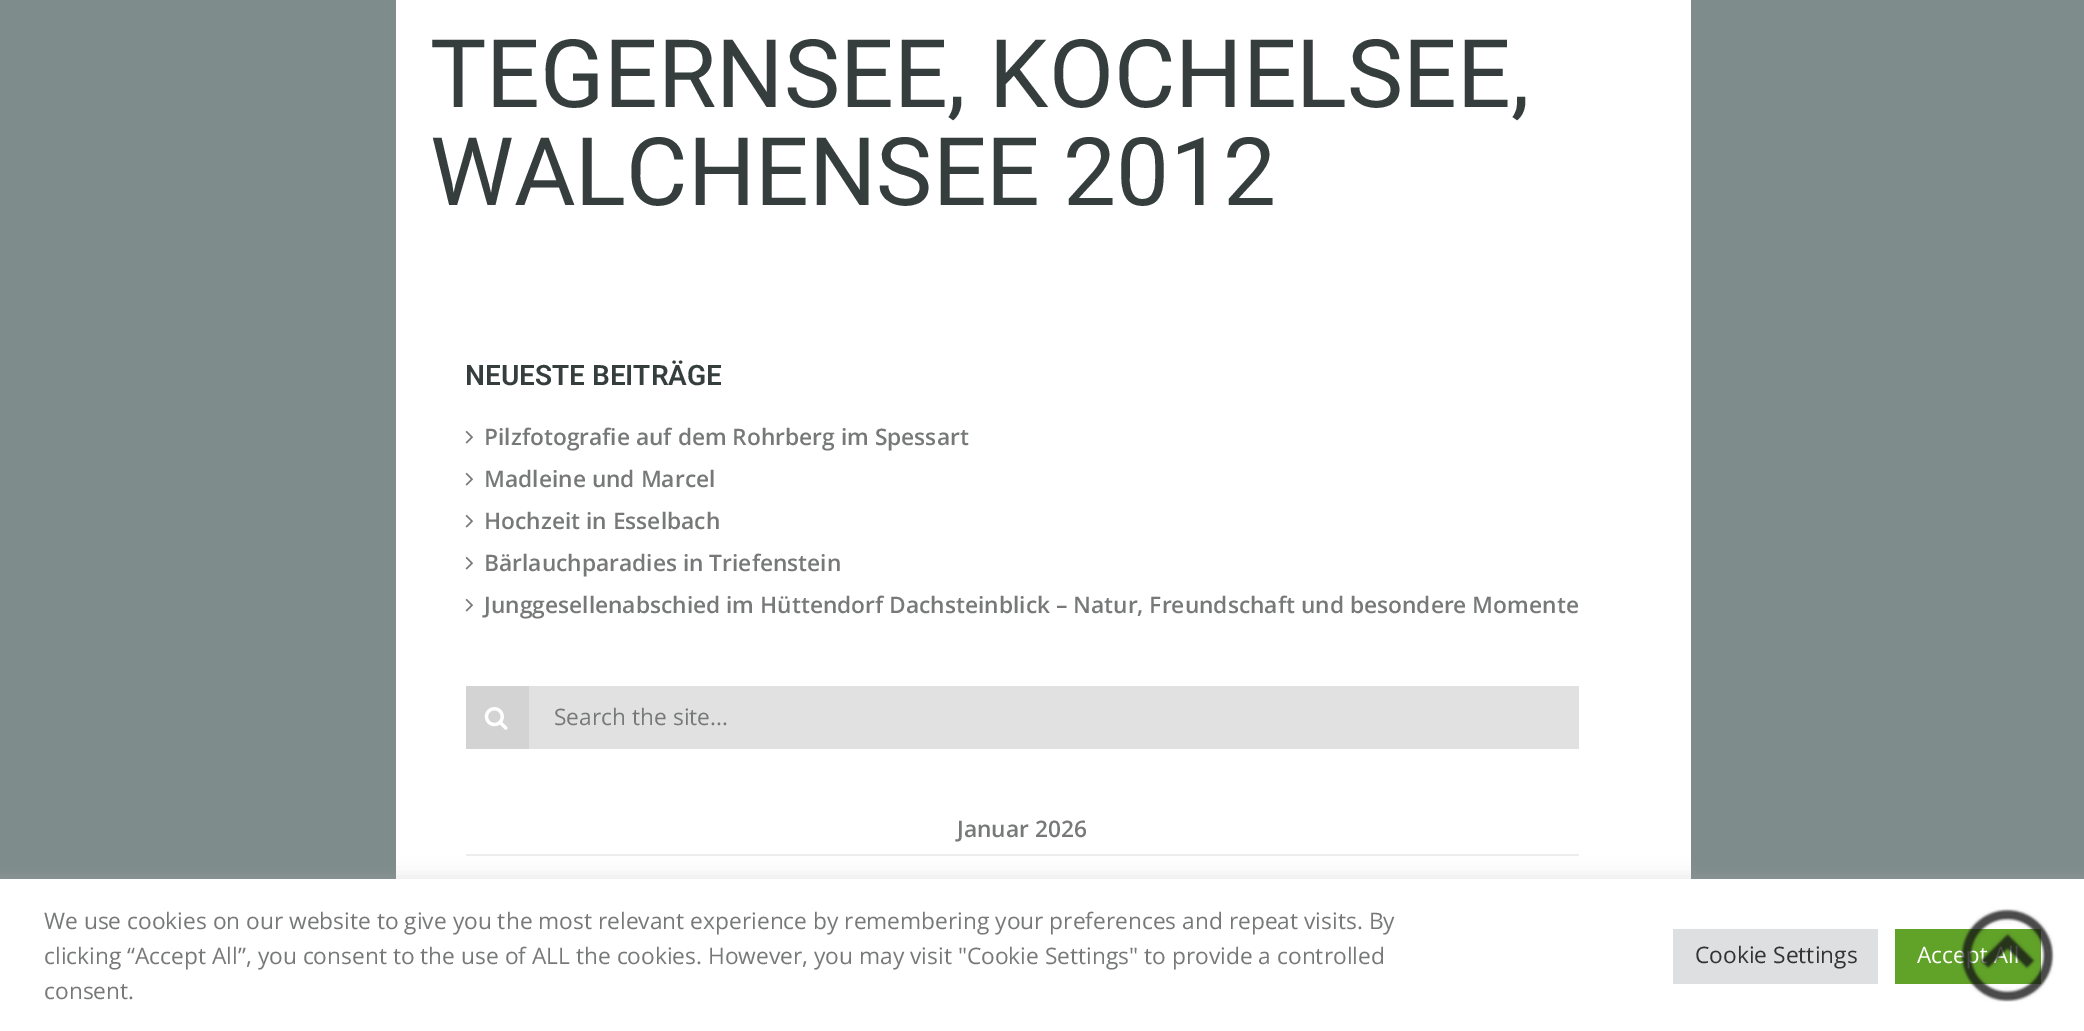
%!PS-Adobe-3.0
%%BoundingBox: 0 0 2084 1031
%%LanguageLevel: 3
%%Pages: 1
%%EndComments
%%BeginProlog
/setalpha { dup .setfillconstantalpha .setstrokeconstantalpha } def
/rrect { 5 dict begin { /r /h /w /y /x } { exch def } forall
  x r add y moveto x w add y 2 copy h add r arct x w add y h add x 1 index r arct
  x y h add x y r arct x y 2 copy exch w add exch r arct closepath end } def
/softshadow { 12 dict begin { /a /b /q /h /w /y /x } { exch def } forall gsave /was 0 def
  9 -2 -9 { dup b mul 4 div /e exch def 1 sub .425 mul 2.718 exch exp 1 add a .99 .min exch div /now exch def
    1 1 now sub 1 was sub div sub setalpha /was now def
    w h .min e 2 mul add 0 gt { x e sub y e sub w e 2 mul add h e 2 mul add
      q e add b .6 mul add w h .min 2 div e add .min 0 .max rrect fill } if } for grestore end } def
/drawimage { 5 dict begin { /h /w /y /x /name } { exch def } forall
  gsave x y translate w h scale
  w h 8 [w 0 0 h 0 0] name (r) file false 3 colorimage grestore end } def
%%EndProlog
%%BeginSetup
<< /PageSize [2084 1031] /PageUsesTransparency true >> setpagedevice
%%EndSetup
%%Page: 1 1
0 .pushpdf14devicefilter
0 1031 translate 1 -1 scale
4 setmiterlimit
0.494 0.549 0.549 setrgbcolor
0 0 2084 1031 rectfill
1 setgray
396 0 1295 879 rectfill
(images/1.raw) 465 430 8 14 drawimage
(images/1.raw) 465 472 8 14 drawimage
(images/1.raw) 465 514 8 14 drawimage
(images/1.raw) 465 556 8 14 drawimage
(images/1.raw) 465 598 8 14 drawimage
0.827 setgray
466 686 63 63 rectfill
(images/2.raw) 484 707 24 23 drawimage
0.882 setgray
529 686 1050 63 rectfill
0.929 setgray
466 854 1113 2 rectfill
0.675 0.671 0.671 setrgbcolor
0 877 2084 154 0 9 0.3 softshadow
1 setgray
0 879 2084 152 rectfill
0.871 0.875 0.878 setrgbcolor
1673 929 205 55 rectfill
0.38 0.635 0.161 setrgbcolor
1895 929 146 55 rectfill
/Roboto-Regular [94.5 0 0 -94.5 0 0] selectfont
0.208 0.243 0.239 setrgbcolor
430 107 moveto (TEGERNSEE, KOCHELSEE,) show
430 205 moveto (WALCHENSEE 2012) show
/Roboto-SemiBold [28 0 0 -28 0 0] selectfont
465 385 moveto (NEUESTE BEITRÄGE) show
/OpenSans-SemiBold [22.75 0 0 -22.75 0 0] selectfont
0.467 0.475 0.475 setrgbcolor
484 445 moveto (Pilzfotografie auf dem Rohrberg im Spessart) show
484 487 moveto (Madleine und Marcel) show
484 529 moveto (Hochzeit in Esselbach) show
484 571 moveto (Bärlauchparadies in Triefenstein) show
484 613 moveto (Junggesellenabschied im Hüttendorf Dachsteinblick – Natur, Freundschaft und besondere Momente) show
/OpenSans-Regular [22.75 0 0 -22.75 0 0] selectfont
554 725 moveto (Search the site...) show
/OpenSans-SemiBold [22.75 0 0 -22.75 0 0] selectfont
957 837 moveto (Januar 2026) show
/OpenSans-Regular [22.75 0 0 -22.75 0 0] selectfont
44 929 moveto (We use cookies on our website to give you the most relevant experience by remembering your preferences and repeat visits. By) show
44 964 moveto (clicking “Accept All”, you consent to the use of ALL the cookies. However, you may visit "Cookie Settings" to provide a controlled) show
44 999 moveto (consent.) show
0.2 setgray
1695 963 moveto (Cookie Settings) show
1 setgray
1917 963 moveto (Acce) show
(images/3.raw) 1961 908 94 94 drawimage
.poppdf14devicefilter showpage
%%EOF
